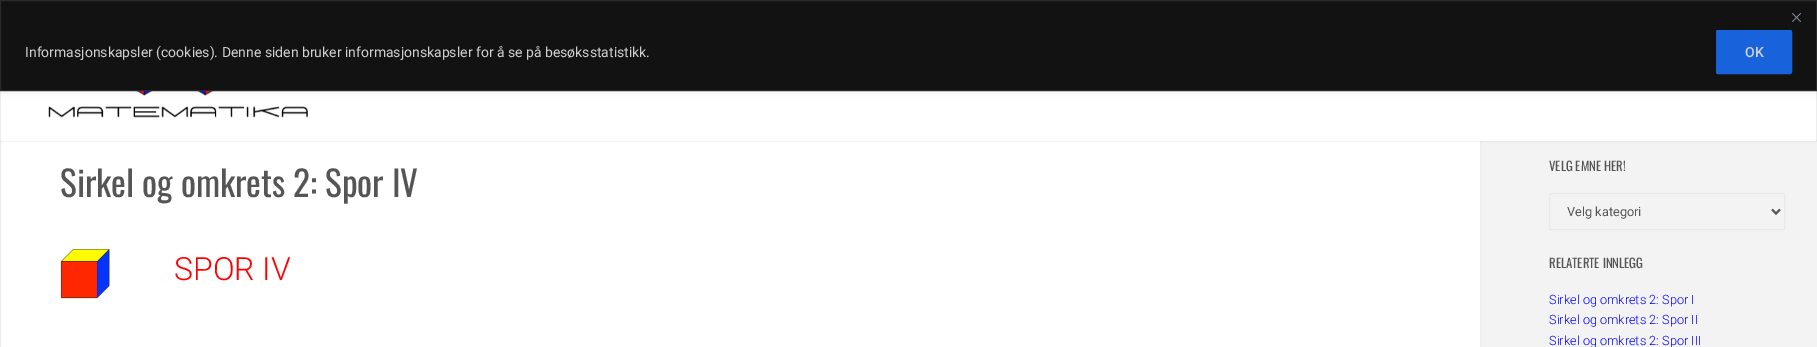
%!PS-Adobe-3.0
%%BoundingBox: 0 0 1817 347
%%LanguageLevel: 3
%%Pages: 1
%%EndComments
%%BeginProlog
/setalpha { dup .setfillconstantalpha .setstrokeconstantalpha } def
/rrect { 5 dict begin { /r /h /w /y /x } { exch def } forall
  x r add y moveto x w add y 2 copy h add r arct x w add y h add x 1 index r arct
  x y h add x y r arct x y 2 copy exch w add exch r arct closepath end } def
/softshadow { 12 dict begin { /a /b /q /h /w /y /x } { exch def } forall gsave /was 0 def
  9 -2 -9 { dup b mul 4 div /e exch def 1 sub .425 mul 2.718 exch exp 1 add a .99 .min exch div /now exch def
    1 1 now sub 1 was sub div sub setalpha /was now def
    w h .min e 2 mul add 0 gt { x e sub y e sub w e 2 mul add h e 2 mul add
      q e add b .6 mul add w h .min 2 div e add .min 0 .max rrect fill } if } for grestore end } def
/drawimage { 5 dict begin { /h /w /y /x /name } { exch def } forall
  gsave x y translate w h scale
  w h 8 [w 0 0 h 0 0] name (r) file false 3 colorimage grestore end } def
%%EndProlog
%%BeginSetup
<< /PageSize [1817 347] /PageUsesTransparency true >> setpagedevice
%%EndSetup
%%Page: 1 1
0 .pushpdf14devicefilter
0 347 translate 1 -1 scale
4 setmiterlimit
0.953 setgray
0 0 1817 347 rectfill
1 setgray
1 141 1479 206 rectfill
0.929 setgray
0.5 120.5 1480 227 rectstroke
0 setgray
0 0 1817 140 0 1.5 0.2 softshadow
0.929 setgray
0.5 0.5 1816 139 rectstroke
1 setgray
1 91 1815 50 rectfill
(images/2.raw) 48 91 260 27 drawimage
0.675 0.671 0.671 setrgbcolor
0 -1 1817 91 0 5 0.3 softshadow
0.071 setgray
newpath 0.5 0.5 moveto 1816.5 0.5 lineto 1816.5 90.5 lineto 0.5 90.5 lineto closepath gsave fill grestore
0.165 setgray
stroke
(images/1.raw) 1792 13 9 9 drawimage
0.094 0.388 0.863 setrgbcolor
1717 31 74 42 1 rrect gsave fill grestore
2 setlinewidth
stroke
(images/3.raw) 60 249 50 50 drawimage
0.914 setgray
1 setlinewidth
1549.5 193.5 235 36 rectstroke
0.333 setgray
2 setlinewidth
newpath 1772 209.5 moveto 1776 213.5 lineto 1780 209.5 lineto stroke
/Roboto-Regular [14 0 0 -14 0 0] selectfont
0.816 setgray
25 57 moveto (Informasjonskapsler \(cookies\). Denne siden bruker informasjonskapsler for å se på besøksstatistikk.) show
/Roboto-Medium [14 0 0 -14 0 0] selectfont
1745 57 moveto (OK) show
/Oswald-Regular [35.25 0 0 -35.25 0 0] selectfont
0.333 setgray
60 197 moveto (Sirkel og omkrets 2: Spor IV) show
/Roboto-Light [32 0 0 -32 0 0] selectfont
1 0 0 setrgbcolor
174 280 moveto (SPOR IV) show
/Oswald-Regular [12.75 0 0 -12.75 0 0] selectfont
0.333 setgray
1549 171 moveto (VELG EMNE HER!) show
/Roboto-Regular [12.75 0 0 -12.75 0 0] selectfont
1567 216 moveto (Velg kategori) show
/Oswald-Regular [12.75 0 0 -12.75 0 0] selectfont
1549 268 moveto (RELATERTE INNLEGG) show
/Roboto-Light [12.75 0 0 -12.75 0 0] selectfont
0 0 1 setrgbcolor
1549 304 moveto (Sirkel og omkrets 2: Spor I) show
1549 324 moveto (Sirkel og omkrets 2: Spor II) show
1549 345 moveto (Sirkel og omkrets 2: Spor III) show
.poppdf14devicefilter showpage
%%EOF
